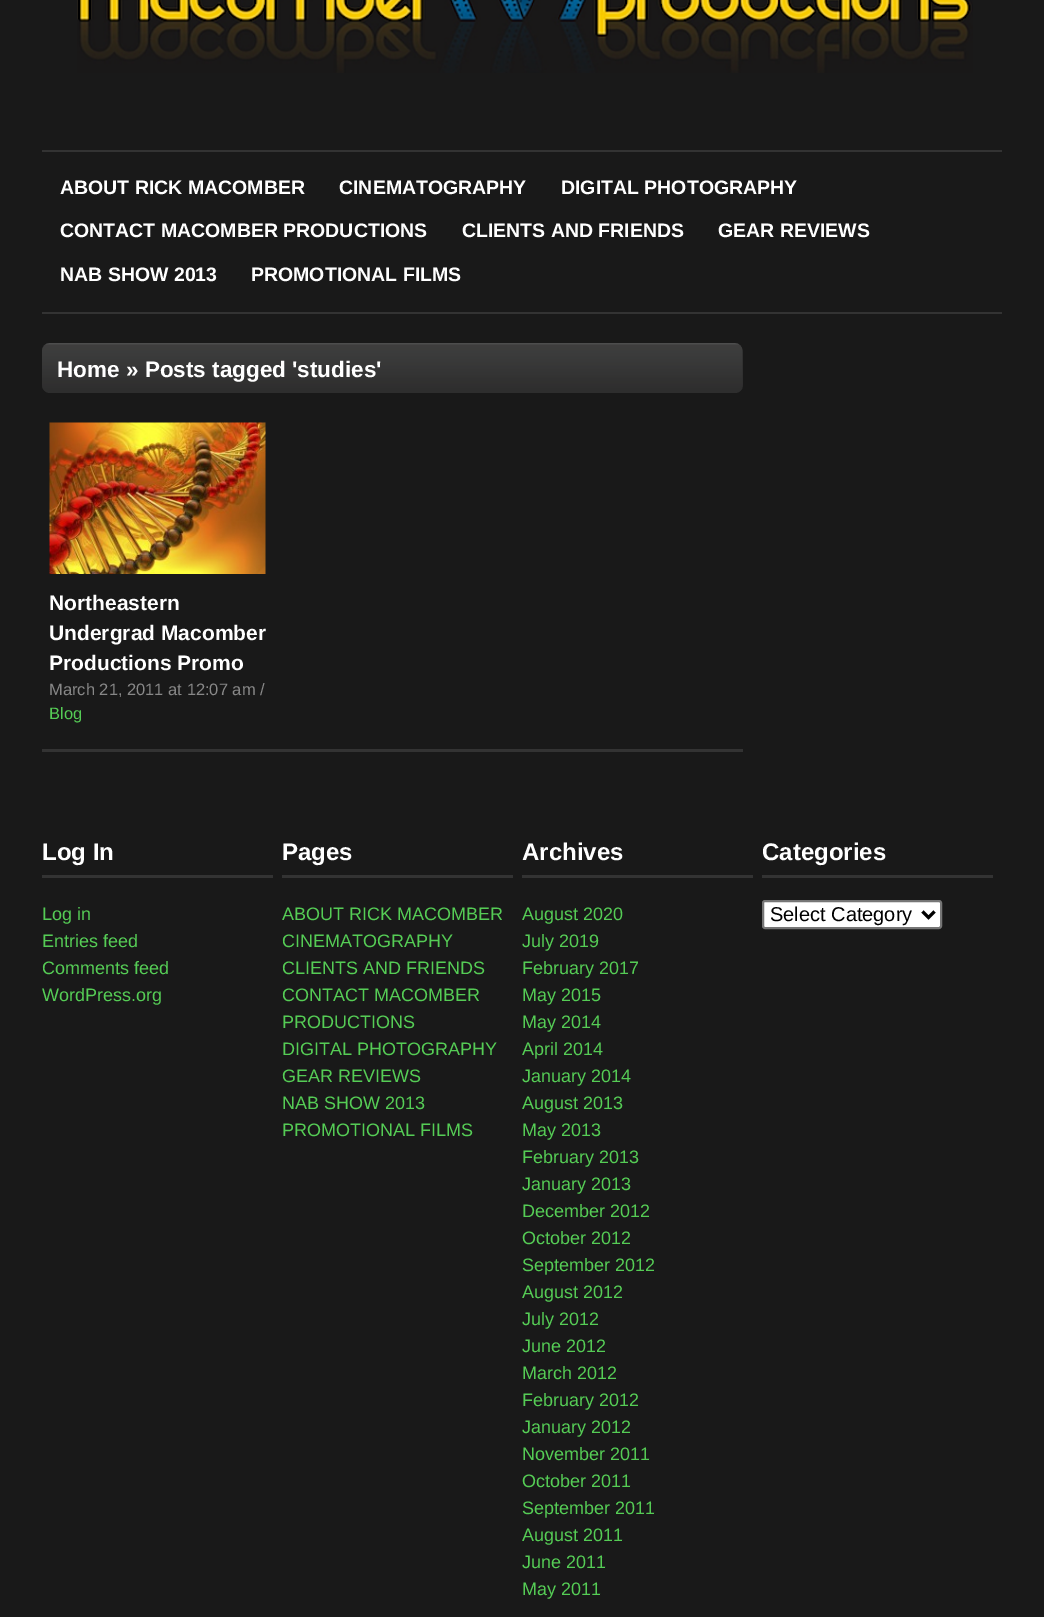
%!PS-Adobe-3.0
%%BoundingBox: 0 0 1044 1617
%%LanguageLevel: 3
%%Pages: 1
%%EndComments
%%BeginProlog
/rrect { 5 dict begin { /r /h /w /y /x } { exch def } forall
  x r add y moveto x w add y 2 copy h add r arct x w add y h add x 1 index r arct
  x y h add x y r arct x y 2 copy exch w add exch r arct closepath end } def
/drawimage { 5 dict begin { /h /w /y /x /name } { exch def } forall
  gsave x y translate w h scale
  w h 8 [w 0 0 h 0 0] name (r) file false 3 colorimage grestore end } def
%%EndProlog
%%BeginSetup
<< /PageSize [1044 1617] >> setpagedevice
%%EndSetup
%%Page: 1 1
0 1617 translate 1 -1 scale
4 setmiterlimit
0.098 setgray
0 0 1044 1617 rectfill
0.2 setgray
42 150 960 2 rectfill
(images/1.raw) 77 0 896 73 drawimage
42 312 960 2 rectfill
0.18 setgray
42 344 701 49 8 rrect fill
(images/2.raw) 42 343 701 45 drawimage
(images/3.raw) 49 422 217 152 drawimage
0.2 setgray
42 749 701 3 rectfill
42 875 231 3 rectfill
282 875 231 3 rectfill
522 875 231 3 rectfill
762 875 231 3 rectfill
1 setgray
763 901 178 27 2 rrect gsave fill grestore
0.463 setgray
2 setlinewidth
stroke
0 setgray
3 setlinewidth
newpath 922.5 911.5 moveto 928.5 917.5 lineto 934.5 911.5 lineto stroke
/LiberationSans-Bold [19.5 0 0 -19.5 0 0] selectfont
1 setgray
60 194 moveto (ABOUT RICK MACOMBER) show
339 194 moveto (CINEMATOGRAPHY) show
561 194 moveto (DIGITAL PHOTOGRAPHY) show
60 237 moveto (CONTACT MACOMBER PRODUCTIONS) show
462 237 moveto (CLIENTS AND FRIENDS) show
718 237 moveto (GEAR REVIEWS) show
60 281 moveto (NAB SHOW 2013) show
251 281 moveto (PROMOTIONAL FILMS) show
/LiberationSans-Bold [22.5 0 0 -22.5 0 0] selectfont
57 377 moveto (Home » Posts tagged 'studies') show
/LiberationSans-Bold [21 0 0 -21 0 0] selectfont
49 610 moveto (Northeastern) show
49 640 moveto (Undergrad Macomber) show
49 670 moveto (Productions Promo) show
/LiberationSans-Regular [16.5 0 0 -16.5 0 0] selectfont
0.533 setgray
49 695 moveto (March 21, 2011 at 12:07 am /) show
0.333 0.8 0.333 setrgbcolor
49 719 moveto (Blog) show
/LiberationSans-Bold [24 0 0 -24 0 0] selectfont
1 setgray
42 860 moveto (Log In) show
/LiberationSans-Regular [18 0 0 -18 0 0] selectfont
0.333 0.8 0.333 setrgbcolor
42 920 moveto (Log in) show
42 947 moveto (Entries feed) show
42 974 moveto (Comments feed) show
42 1001 moveto (WordPress.org) show
/LiberationSans-Bold [24 0 0 -24 0 0] selectfont
1 setgray
282 860 moveto (Pages) show
/LiberationSans-Regular [18 0 0 -18 0 0] selectfont
0.333 0.8 0.333 setrgbcolor
282 920 moveto (ABOUT RICK MACOMBER) show
282 947 moveto (CINEMATOGRAPHY) show
282 974 moveto (CLIENTS AND FRIENDS) show
282 1001 moveto (CONTACT MACOMBER) show
282 1028 moveto (PRODUCTIONS) show
282 1055 moveto (DIGITAL PHOTOGRAPHY) show
282 1082 moveto (GEAR REVIEWS) show
282 1109 moveto (NAB SHOW 2013) show
282 1136 moveto (PROMOTIONAL FILMS) show
/LiberationSans-Bold [24 0 0 -24 0 0] selectfont
1 setgray
522 860 moveto (Archives) show
/LiberationSans-Regular [18 0 0 -18 0 0] selectfont
0.333 0.8 0.333 setrgbcolor
522 920 moveto (August 2020) show
522 947 moveto (July 2019) show
522 974 moveto (February 2017) show
522 1001 moveto (May 2015) show
522 1028 moveto (May 2014) show
522 1055 moveto (April 2014) show
522 1082 moveto (January 2014) show
522 1109 moveto (August 2013) show
522 1136 moveto (May 2013) show
522 1163 moveto (February 2013) show
522 1190 moveto (January 2013) show
522 1217 moveto (December 2012) show
522 1244 moveto (October 2012) show
522 1271 moveto (September 2012) show
522 1298 moveto (August 2012) show
522 1325 moveto (July 2012) show
522 1352 moveto (June 2012) show
522 1379 moveto (March 2012) show
522 1406 moveto (February 2012) show
522 1433 moveto (January 2012) show
522 1460 moveto (November 2011) show
522 1487 moveto (October 2011) show
522 1514 moveto (September 2011) show
522 1541 moveto (August 2011) show
522 1568 moveto (June 2011) show
522 1595 moveto (May 2011) show
/LiberationSans-Bold [24 0 0 -24 0 0] selectfont
1 setgray
762 860 moveto (Categories) show
/LiberationSans-Regular [20 0 0 -20 0 0] selectfont
0 setgray
770 921 moveto (Select Category) show
showpage
%%EOF
